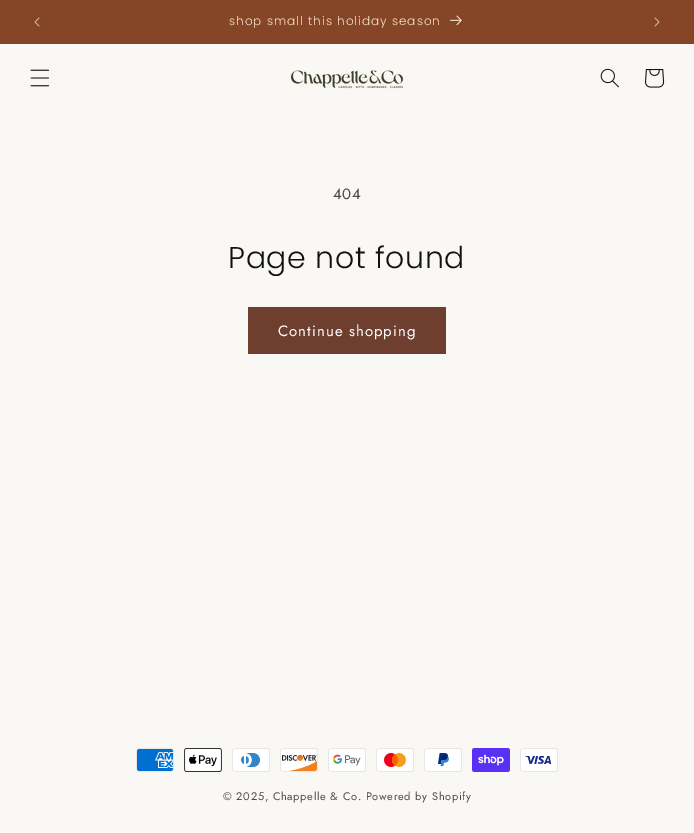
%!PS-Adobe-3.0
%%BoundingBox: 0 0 694 833
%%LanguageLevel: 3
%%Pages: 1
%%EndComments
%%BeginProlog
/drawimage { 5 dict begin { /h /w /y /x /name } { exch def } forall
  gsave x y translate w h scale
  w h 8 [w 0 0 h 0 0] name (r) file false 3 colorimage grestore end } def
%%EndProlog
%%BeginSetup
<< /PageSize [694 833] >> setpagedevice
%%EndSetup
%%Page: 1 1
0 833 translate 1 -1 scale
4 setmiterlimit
0.98 0.973 0.957 setrgbcolor
0 0 694 833 rectfill
0.522 0.275 0.153 setrgbcolor
0 0 694 44 rectfill
(images/1.raw) 34 17 6 10 drawimage
(images/2.raw) 450 15 12 11 drawimage
(images/3.raw) 654 17 6 10 drawimage
(images/4.raw) 30 69 20 18 drawimage
(images/5.raw) 290 70 114 19 drawimage
(images/6.raw) 600 68 19 20 drawimage
(images/7.raw) 645 69 20 19 drawimage
0.431 0.243 0.184 setrgbcolor
248 307 198 47 rectfill
(images/8.raw) 136 748 38 24 drawimage
(images/9.raw) 184 748 38 24 drawimage
(images/10.raw) 232 748 38 24 drawimage
(images/11.raw) 280 748 38 24 drawimage
(images/12.raw) 328 748 38 24 drawimage
(images/13.raw) 376 748 38 24 drawimage
(images/14.raw) 424 748 38 24 drawimage
(images/15.raw) 472 748 38 24 drawimage
(images/16.raw) 520 748 38 24 drawimage
/Poppins-Light [12 0 0 -12 0 0] selectfont
0.976 0.89 0.8 setrgbcolor
229 25 moveto 1 0 (shop small this holiday season) ashow
/Jost-Regular [15 0 0 -15 0 0] selectfont
0.298 0.298 0.294 setrgbcolor
333 199 moveto 0.6 0 (404) ashow
/Poppins-Light [30 0 0 -30 0 0] selectfont
0.071 setgray
228 268 moveto 0.6 0 (Page not found) ashow
/Jost-Regular [15 0 0 -15 0 0] selectfont
1 setgray
278 336 moveto 1 0 (Continue shopping) ashow
/Jost-Regular [11 0 0 -11 0 0] selectfont
0.298 0.298 0.294 setrgbcolor
223 800 moveto 0.7 0 (© 2025, Chappelle & Co. Powered by Shopify) ashow
showpage
%%EOF
